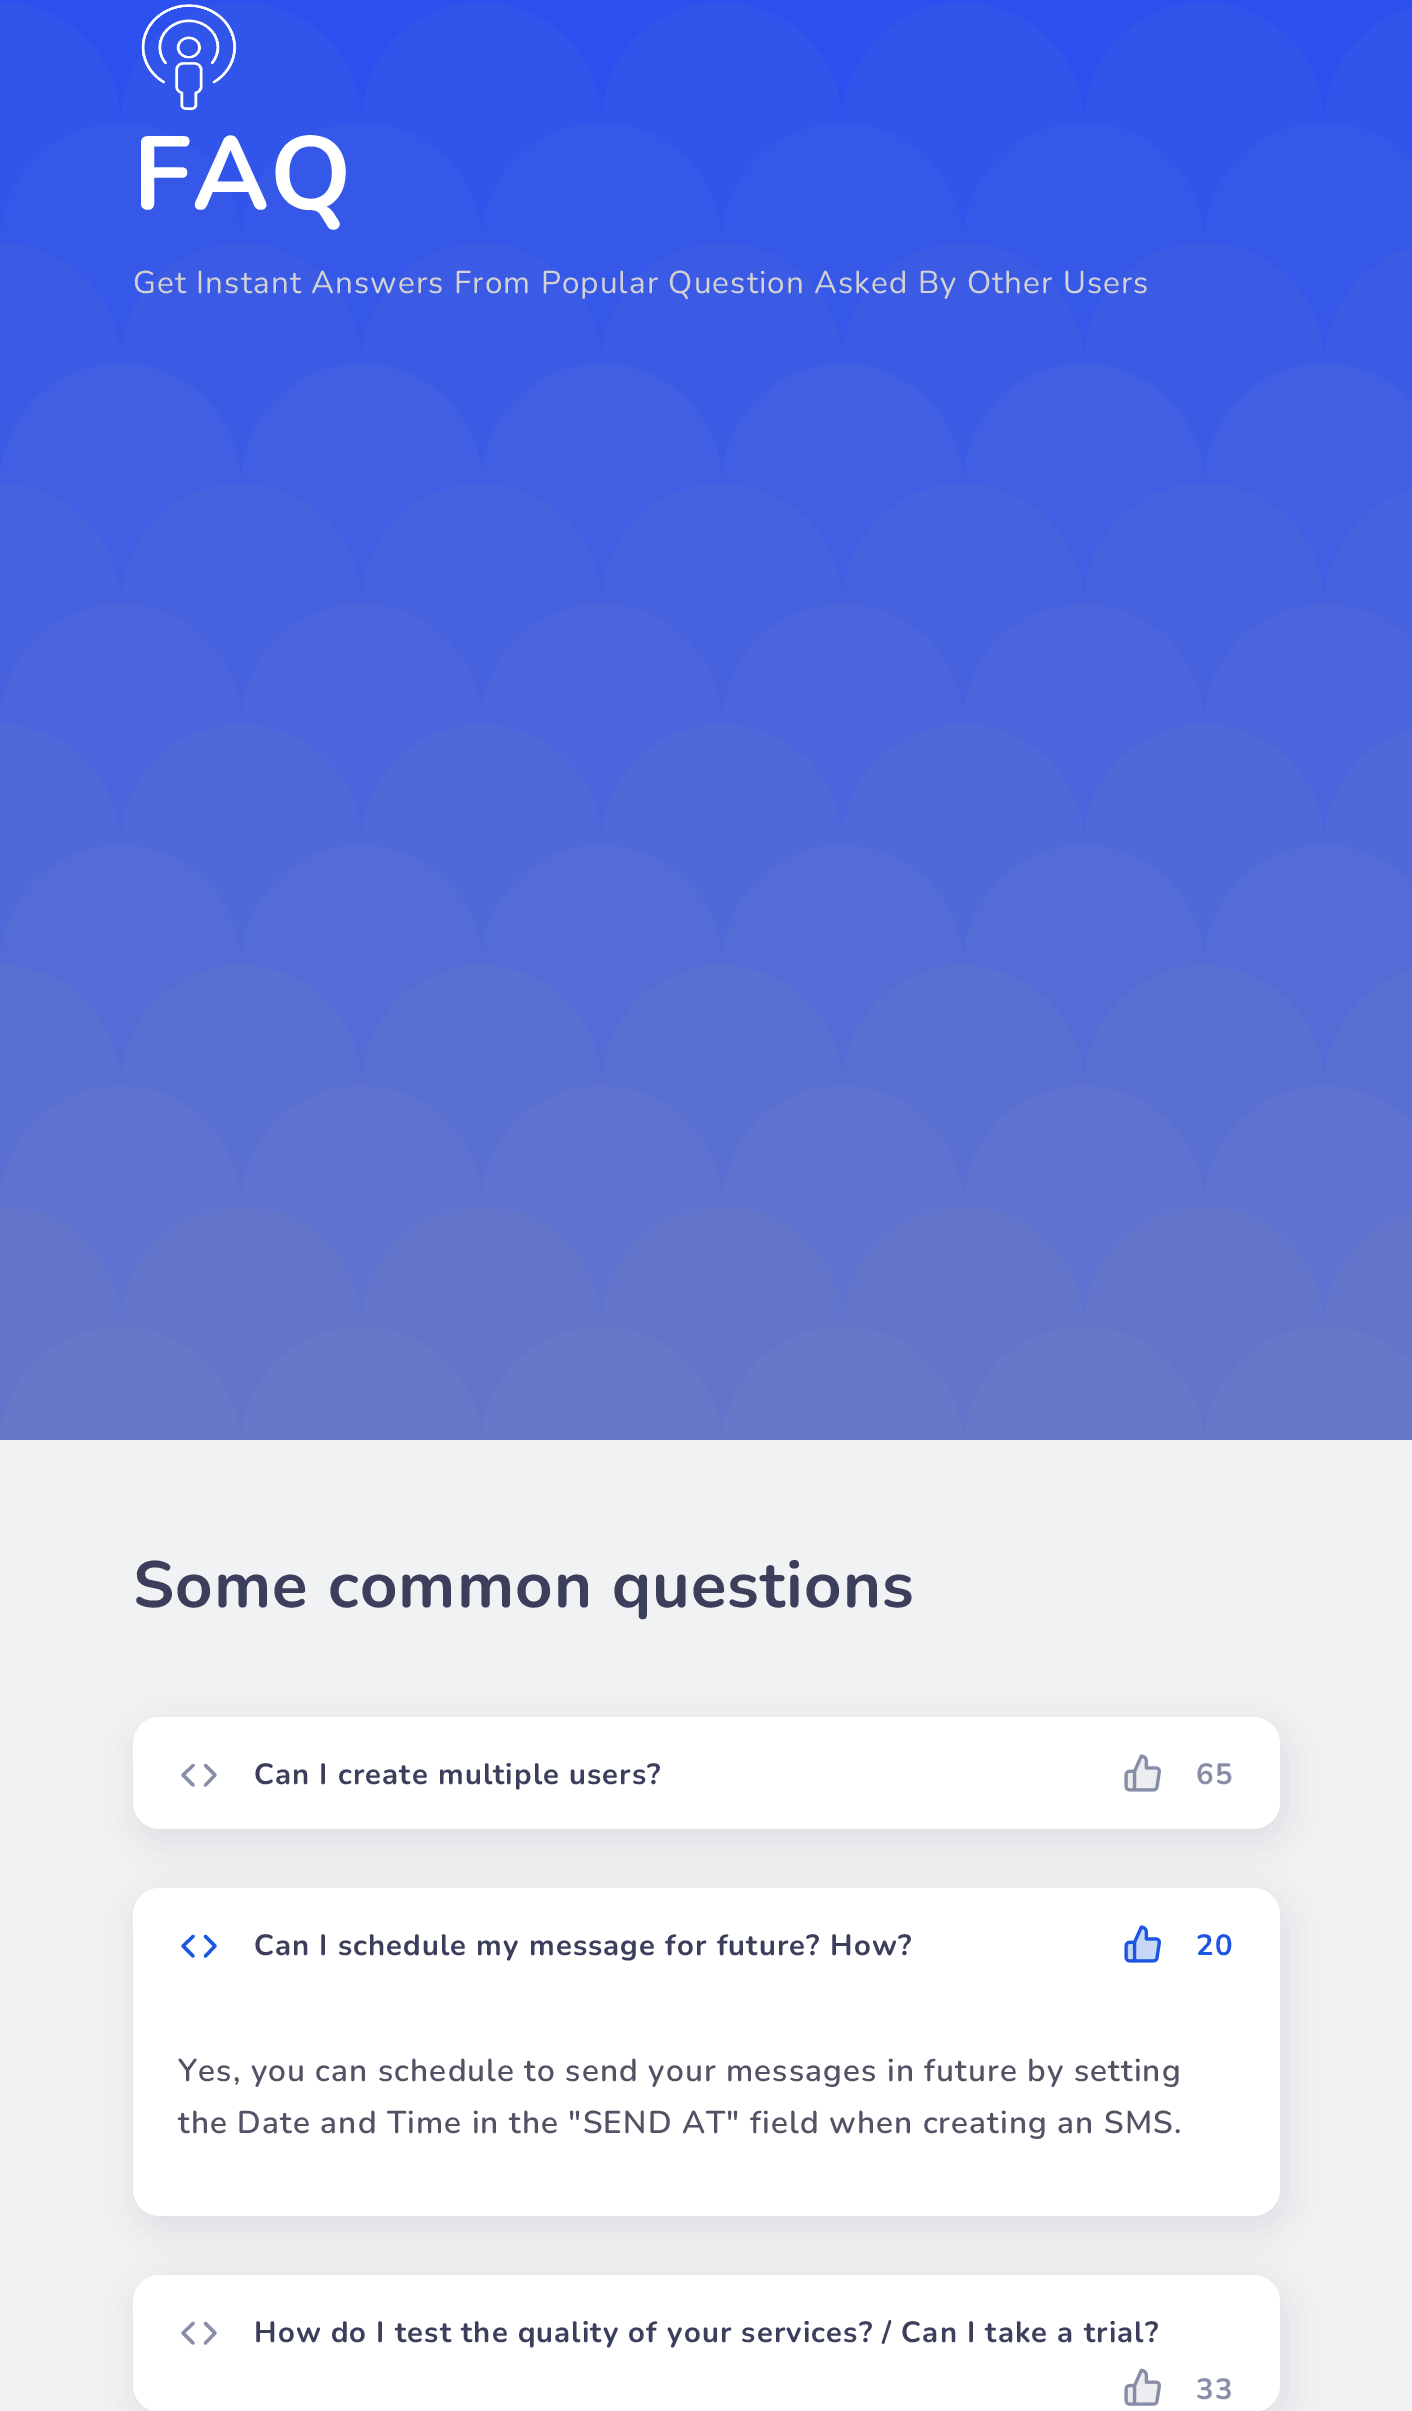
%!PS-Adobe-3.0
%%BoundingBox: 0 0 1412 2411
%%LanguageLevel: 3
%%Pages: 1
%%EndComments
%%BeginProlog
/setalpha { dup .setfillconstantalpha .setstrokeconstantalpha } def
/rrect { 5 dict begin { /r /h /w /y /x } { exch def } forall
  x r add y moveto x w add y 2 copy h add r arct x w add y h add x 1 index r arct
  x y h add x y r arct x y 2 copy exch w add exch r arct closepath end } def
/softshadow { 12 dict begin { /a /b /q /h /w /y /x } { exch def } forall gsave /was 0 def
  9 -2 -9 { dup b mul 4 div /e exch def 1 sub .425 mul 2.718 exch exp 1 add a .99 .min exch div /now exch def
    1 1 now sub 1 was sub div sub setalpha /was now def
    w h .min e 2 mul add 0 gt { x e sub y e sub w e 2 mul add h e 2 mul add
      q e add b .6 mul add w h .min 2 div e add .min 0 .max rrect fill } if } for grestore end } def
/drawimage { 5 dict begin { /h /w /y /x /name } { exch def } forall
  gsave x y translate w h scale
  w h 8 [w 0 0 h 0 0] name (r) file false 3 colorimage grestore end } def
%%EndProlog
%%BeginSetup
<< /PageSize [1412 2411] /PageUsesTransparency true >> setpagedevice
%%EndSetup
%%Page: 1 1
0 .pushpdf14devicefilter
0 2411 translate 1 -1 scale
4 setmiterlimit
0.945 0.949 0.953 setrgbcolor
0 0 1412 2411 rectfill
(images/1.raw) 0 0 1412 1440 drawimage
(images/2.raw) 141 4 96 106 drawimage
0.122 0.176 0.239 setrgbcolor
137 1728 1148 113 27 19 0.1 softshadow
1 setgray
133 1717 1147 112 27 rrect fill
0.533 0.557 0.659 setrgbcolor
3.2 setlinewidth
1 setlinecap
1 setlinejoin
newpath 205.5 1785 moveto 215 1775 lineto 205.5 1765.5 lineto 193 1765.5 moveto 183 1775 lineto 193 1785 lineto stroke
(images/3.raw) 1124 1754 37 38 drawimage
0.122 0.176 0.239 setrgbcolor
137 1899 1148 329 27 19 0.1 softshadow
1 setgray
133 1888 1147 328 27 rrect fill
0.106 0.333 0.886 setrgbcolor
newpath 205.5 1956 moveto 215 1946 lineto 205.5 1936.5 lineto 193 1936.5 moveto 183 1946 lineto 193 1956 lineto stroke
(images/4.raw) 1124 1925 37 38 drawimage
0.122 0.176 0.239 setrgbcolor
137 2286 1148 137 27 19 0.1 softshadow
1 setgray
133 2275 1147 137 27 rrect fill
0.533 0.557 0.659 setrgbcolor
newpath 205.5 2343 moveto 215 2333 lineto 205.5 2323.5 lineto 193 2323.5 moveto 183 2333 lineto 193 2343 lineto stroke
(images/5.raw) 1124 2368 37 38 drawimage
/Nunito-Bold [103.5 0 0 -103.5 0 0] selectfont
1 setgray
133 209 moveto 1.12 0 (FAQ) ashow
/Nunito-Regular [31.5 0 0 -31.5 0 0] selectfont
0.827 setgray
133 293 moveto 1.12 0 (Get Instant Answers From Popular Question Asked By Other Users) ashow
/Nunito-Bold [65.25 0 0 -65.25 0 0] selectfont
0.231 0.247 0.361 setrgbcolor
133 1607 moveto 1.12 0 (Some common questions) ashow
/Nunito-Bold [29.25 0 0 -29.25 0 0] selectfont
254 1784 moveto 1.12 0 (Can I create multiple users?) ashow
0.533 0.557 0.659 setrgbcolor
1196 1784 moveto 1.12 0 (65) ashow
0.231 0.247 0.361 setrgbcolor
254 1955 moveto 1.12 0 (Can I schedule my message for future? How?) ashow
0.106 0.333 0.886 setrgbcolor
1196 1955 moveto 1.12 0 (20) ashow
/Nunito-SemiBold [31.5 0 0 -31.5 0 0] selectfont
0.318 0.325 0.396 setrgbcolor
178 2081 moveto 1.12 0 (Yes, you can schedule to send your messages in future by setting) ashow
178 2133 moveto 1.12 0 (the Date and Time in the "SEND AT" field when creating an SMS.) ashow
/Nunito-Bold [29.25 0 0 -29.25 0 0] selectfont
0.231 0.247 0.361 setrgbcolor
254 2342 moveto 1.12 0 (How do I test the quality of your services? / Can I take a trial?) ashow
0.533 0.557 0.659 setrgbcolor
1196 2399 moveto 1.12 0 (33) ashow
.poppdf14devicefilter showpage
%%EOF
